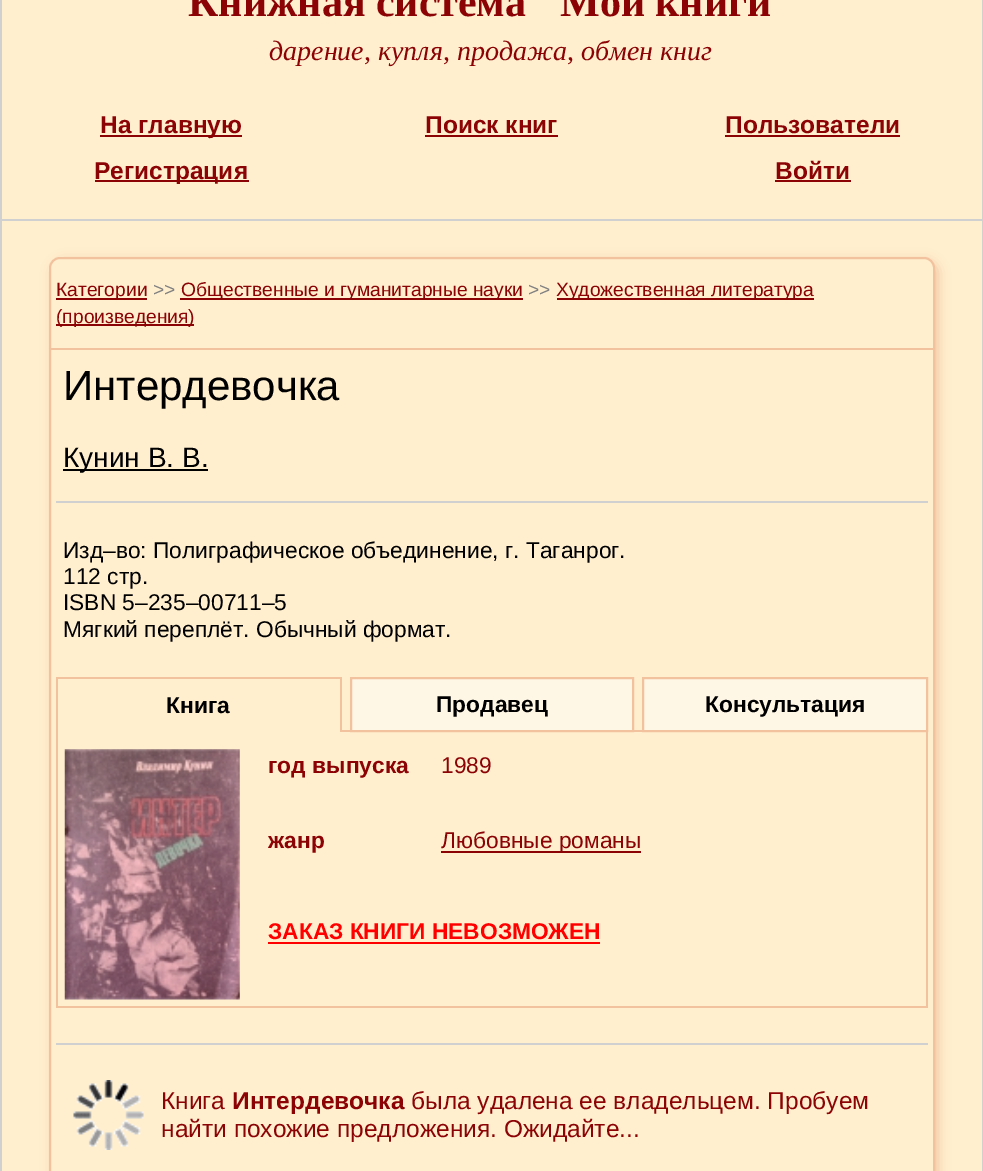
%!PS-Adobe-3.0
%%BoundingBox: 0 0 983 1171
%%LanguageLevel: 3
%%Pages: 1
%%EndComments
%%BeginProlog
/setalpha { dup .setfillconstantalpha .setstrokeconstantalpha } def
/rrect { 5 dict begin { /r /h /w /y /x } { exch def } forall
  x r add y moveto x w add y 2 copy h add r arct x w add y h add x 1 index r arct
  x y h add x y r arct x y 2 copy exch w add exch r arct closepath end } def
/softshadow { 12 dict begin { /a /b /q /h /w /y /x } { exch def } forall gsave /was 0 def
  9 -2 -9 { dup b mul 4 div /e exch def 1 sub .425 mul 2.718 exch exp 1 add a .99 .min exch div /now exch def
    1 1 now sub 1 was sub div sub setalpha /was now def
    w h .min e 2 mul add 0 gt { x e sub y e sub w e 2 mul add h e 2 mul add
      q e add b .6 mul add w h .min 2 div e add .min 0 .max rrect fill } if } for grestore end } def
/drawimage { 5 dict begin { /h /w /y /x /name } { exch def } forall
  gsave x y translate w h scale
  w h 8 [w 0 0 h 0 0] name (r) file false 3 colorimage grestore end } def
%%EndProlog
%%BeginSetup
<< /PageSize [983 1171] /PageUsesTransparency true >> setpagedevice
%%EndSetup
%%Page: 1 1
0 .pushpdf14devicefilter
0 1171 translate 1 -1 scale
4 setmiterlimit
1 0.937 0.812 setrgbcolor
0 0 983 1171 rectfill
0.816 setgray
982 0 1 1171 rectfill
0 0 2 1171 rectfill
2 219 980 2 rectfill
0.545 0.012 0.016 setrgbcolor
100 135 142 2 rectfill
425 135 133 2 rectfill
725 135 175 2 rectfill
95 180 154 2 rectfill
775 180 76 2 rectfill
gsave
newpath 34 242 moveto 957 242 lineto 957 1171 lineto 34 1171 lineto closepath 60 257 moveto 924 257 lineto 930 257 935 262 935 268 curveto 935 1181 lineto 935 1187 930 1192 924 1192 curveto 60 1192 lineto 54 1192 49 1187 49 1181 curveto 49 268 lineto 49 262 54 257 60 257 curveto closepath eoclip newpath
0.949 0.761 0.624 setrgbcolor
53 261 885 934 11 6 1 softshadow
grestore
0.949 0.761 0.624 setrgbcolor
2 setlinewidth
50 258 884 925 10 rrect stroke
51 348 882 2 rectfill
0.545 0.012 0.016 setrgbcolor
56 298 91 2 rectfill
180 298 343 2 rectfill
557 298 257 2 rectfill
56 324 138 2 rectfill
0.816 setgray
56 501 872 2 rectfill
0 setgray
63 469 145 2 rectfill
0.949 0.761 0.624 setrgbcolor
56 677 285 2 rectfill
340 677 2 55 rectfill
56 677 2 55 rectfill
1 0.969 0.902 setrgbcolor
newpath 351 678 moveto 633 678 lineto 633 731 lineto 351 731 lineto closepath gsave fill grestore
0.949 0.761 0.624 setrgbcolor
stroke
1 0.969 0.902 setrgbcolor
newpath 643 678 moveto 927 678 lineto 927 731 lineto 643 731 lineto closepath gsave fill grestore
0.949 0.761 0.624 setrgbcolor
stroke
341 730 9 2 rectfill
634 730 8 2 rectfill
56 1006 205 2 rectfill
56 732 2 276 rectfill
(images/1.raw) 64 749 176 251 drawimage
926 732 2 276 rectfill
261 1006 667 2 rectfill
0.545 0.012 0.016 setrgbcolor
441 851 200 2 rectfill
1 0 0 setrgbcolor
268 942 332 2 rectfill
0.816 setgray
56 1043 872 2 rectfill
(images/2.raw) 73 1080 71 70 drawimage
/LiberationSerif-Bold [42 0 0 -42 0 0] selectfont
0.545 0.012 0.016 setrgbcolor
188 16 moveto (Книжная система "Мои книги) show
/LiberationSerif-Italic [28 0 0 -28 0 0] selectfont
269 60 moveto (дарение, купля, продажа, обмен книг) show
/LiberationSans-Bold [24.5 0 0 -24.5 0 0] selectfont
100 133 moveto (На главную) show
425 133 moveto (Поиск книг) show
725 133 moveto (Пользователи) show
94 179 moveto (Регистрация) show
775 179 moveto (Войти) show
/LiberationSans-Regular [19.25 0 0 -19.25 0 0] selectfont
56 296 moveto (Категории) show
0.502 setgray
153 296 moveto (>>) show
0.545 0.012 0.016 setrgbcolor
181 296 moveto (Общественные и гуманитарные науки) show
0.502 setgray
528 296 moveto (>>) show
0.545 0.012 0.016 setrgbcolor
556 296 moveto (Художественная литература) show
56 323 moveto (\(произведения\)) show
/LiberationSans-Regular [42 0 0 -42 0 0] selectfont
0 setgray
63 400 moveto (Интердевочка) show
/LiberationSans-Regular [28 0 0 -28 0 0] selectfont
63 467 moveto (Кунин В. В.) show
/LiberationSans-Regular [22.75 0 0 -22.75 0 0] selectfont
63 558 moveto (Изд–во: Полиграфическое объединение, г. Таганрог.) show
63 584 moveto (112 стр.) show
63 610 moveto (ISBN 5–235–00711–5) show
63 637 moveto (Мягкий переплёт. Обычный формат.) show
/LiberationSans-Bold [22.75 0 0 -22.75 0 0] selectfont
166 713 moveto (Книга) show
436 712 moveto (Продавец) show
705 712 moveto (Консультация) show
0.545 0.012 0.016 setrgbcolor
268 773 moveto (год выпуска) show
/LiberationSans-Regular [22.75 0 0 -22.75 0 0] selectfont
441 773 moveto (1989) show
/LiberationSans-Bold [22.75 0 0 -22.75 0 0] selectfont
268 848 moveto (жанр) show
/LiberationSans-Regular [22.75 0 0 -22.75 0 0] selectfont
441 848 moveto (Любовные романы) show
/LiberationSans-Bold [22.75 0 0 -22.75 0 0] selectfont
1 0 0 setrgbcolor
268 939 moveto (ЗАКАЗ КНИГИ НЕВОЗМОЖЕН) show
/LiberationSans-Regular [24.5 0 0 -24.5 0 0] selectfont
0.545 0.012 0.016 setrgbcolor
161 1109 moveto (Книга) show
/LiberationSans-Bold [24.5 0 0 -24.5 0 0] selectfont
232 1109 moveto (Интердевочка) show
/LiberationSans-Regular [24.5 0 0 -24.5 0 0] selectfont
411 1109 moveto (была удалена ее владельцем. Пробуем) show
161 1137 moveto (найти похожие предложения. Ожидайте...) show
.poppdf14devicefilter showpage
%%EOF
